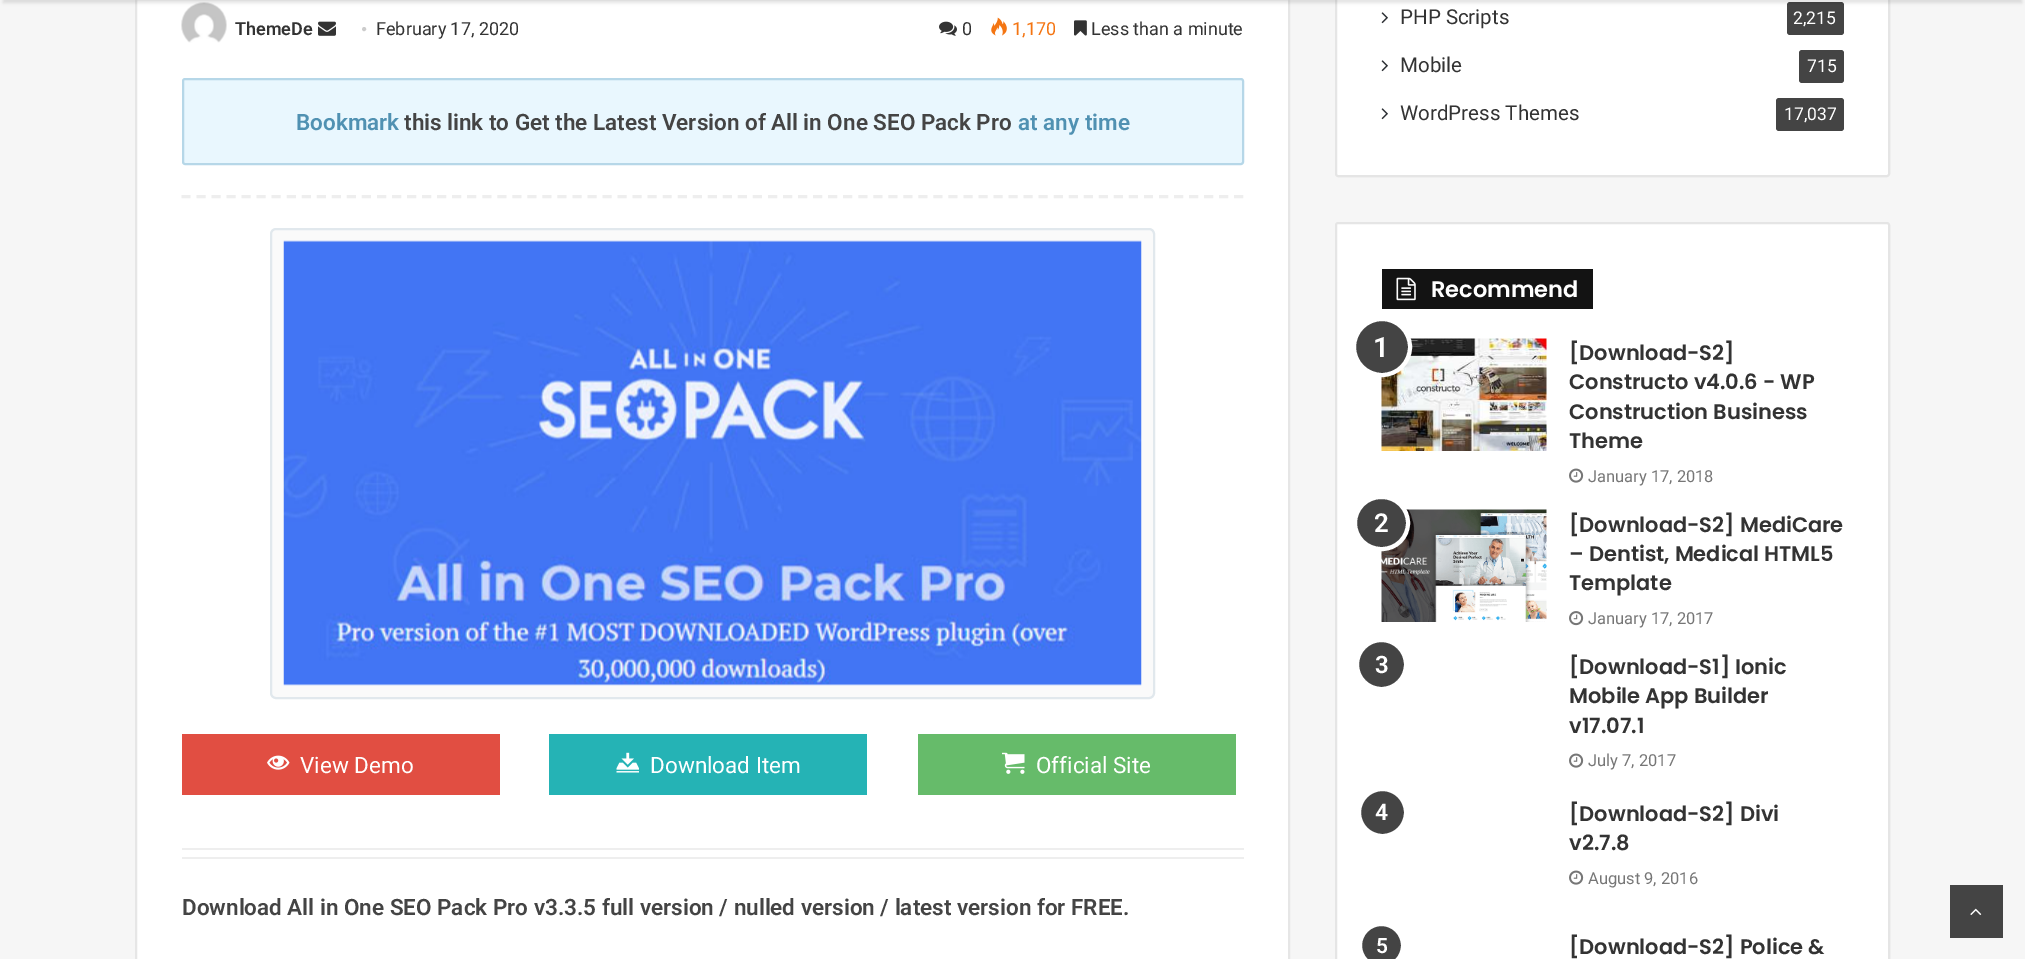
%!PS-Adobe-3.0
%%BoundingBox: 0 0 2025 959
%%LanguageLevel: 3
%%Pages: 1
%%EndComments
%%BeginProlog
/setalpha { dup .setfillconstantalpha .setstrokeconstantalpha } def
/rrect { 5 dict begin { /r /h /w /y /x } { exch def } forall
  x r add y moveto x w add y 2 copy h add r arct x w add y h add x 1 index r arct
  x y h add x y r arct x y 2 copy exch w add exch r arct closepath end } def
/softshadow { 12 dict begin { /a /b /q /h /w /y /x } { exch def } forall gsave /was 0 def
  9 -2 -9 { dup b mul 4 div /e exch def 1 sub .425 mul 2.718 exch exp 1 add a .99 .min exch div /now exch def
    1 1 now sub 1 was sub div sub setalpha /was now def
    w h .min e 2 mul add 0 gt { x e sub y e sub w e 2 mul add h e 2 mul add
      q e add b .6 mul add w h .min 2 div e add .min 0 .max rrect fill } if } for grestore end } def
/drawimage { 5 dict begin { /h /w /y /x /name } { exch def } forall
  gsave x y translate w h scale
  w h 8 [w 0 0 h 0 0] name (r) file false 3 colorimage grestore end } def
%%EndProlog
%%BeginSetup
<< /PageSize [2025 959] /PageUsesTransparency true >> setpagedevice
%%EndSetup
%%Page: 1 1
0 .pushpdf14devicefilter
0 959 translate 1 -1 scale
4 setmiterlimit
0.965 setgray
0 0 2025 959 rectfill
1 setgray
newpath 136 -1 moveto 1289 -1 lineto 1289 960 lineto 136 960 lineto closepath gsave fill grestore
0.902 setgray
2 setlinewidth
stroke
(images/1.raw) 181 2 46 41 drawimage
1 setgray
1335 -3 555 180 3 rrect fill
0.1 setalpha
0 setgray
1336 -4 553 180 2 rrect stroke
1 setalpha
0.267 setgray
1787 2 57 33 3 rrect fill
0 setgray
3 -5 2019 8 0 1.5 0.1 softshadow
(images/2.raw) 318 21 18 15 drawimage
(images/3.raw) 939 21 18 15 drawimage
(images/4.raw) 991 17 16 19 drawimage
(images/5.raw) 1074 20 13 16 drawimage
0.914 0.969 0.996 setrgbcolor
183 79 1060 85 2 rrect gsave fill grestore
0.714 0.843 0.91 setrgbcolor
stroke
0.933 setgray
3 setlinewidth
[9 6.04] 0 setdash
newpath 181.5 196.5 moveto 1243.5 196.5 lineto stroke
0.98 setgray
271 229 883 469 5 rrect gsave fill grestore
0.882 0.91 0.929 setrgbcolor
2 setlinewidth
[] 0 setdash
stroke
(images/6.raw) 283 240 859 446 drawimage
0.882 0.306 0.259 setrgbcolor
182 734 318 61 rectfill
(images/7.raw) 267 755 23 15 drawimage
0.145 0.702 0.71 setrgbcolor
549 734 318 61 rectfill
(images/8.raw) 616 752 23 21 drawimage
0.4 0.733 0.416 setrgbcolor
918 734 318 61 rectfill
(images/9.raw) 1002 752 23 22 drawimage
0.933 setgray
182 848 1062 2 rectfill
182 857 1062 2 rectfill
(images/10.raw) 1381 12 7 12 drawimage
(images/10.raw) 1381 60 7 12 drawimage
0.267 setgray
1799 50 45 33 3 rrect fill
(images/10.raw) 1381 108 7 12 drawimage
1776 98 68 33 3 rrect fill
1 setgray
1335 222 555 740 3 rrect fill
0.1 setalpha
0 setgray
1336 223 553 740 2 rrect stroke
1 setalpha
0.075 setgray
1382 269 211 40 rectfill
(images/11.raw) 1396 277 20 24 drawimage
(images/12.raw) 1381 338 166 113 drawimage
0.267 setgray
newpath 1382 347 28 0 360 arc closepath gsave fill grestore
1 setgray
4 setlinewidth
stroke
(images/13.raw) 1569 468 15 15 drawimage
(images/14.raw) 1381 509 166 113 drawimage
(images/15.raw) 1569 611 15 15 drawimage
0.267 setgray
1355 497 53 52 26 rrect gsave fill grestore
1 setgray
stroke
0.267 setgray
newpath 1381.5 664.5 24 0 360 arc closepath gsave fill grestore
1 setgray
3 setlinewidth
stroke
(images/13.raw) 1569 753 15 15 drawimage
0.267 setgray
newpath 1382.5 812.5 23 0 360 arc closepath gsave fill grestore
1 setgray
stroke
(images/13.raw) 1569 870 15 15 drawimage
0.267 setgray
newpath 1381.5 945.5 21 0 360 arc closepath gsave fill grestore
1 setgray
stroke
0.267 setgray
1950 885 53 53 rectfill
(images/16.raw) 1970 908 12 7 drawimage
/Roboto-SemiBold [18 0 0 -18 0 0] selectfont
0.2 setgray
235 35 moveto (ThemeDe) show
/LiberationSerif-Regular [18 0 0 -18 0 0] selectfont
0.8 setgray
361 35 moveto (•) show
/Roboto-Regular [18 0 0 -18 0 0] selectfont
0.2 setgray
376 35 moveto (February 17, 2020) show
962 35 moveto (0) show
0.957 0.459 0.071 setrgbcolor
1012 35 moveto (1,170) show
0.2 setgray
1091 35 moveto (Less than a minute) show
/Roboto-SemiBold [22.5 0 0 -22.5 0 0] selectfont
0.314 0.569 0.698 setrgbcolor
296 130 moveto (Bookmark) show
0.267 setgray
404 130 moveto (this link to Get the Latest Version of All in One SEO Pack Pro) show
0.314 0.569 0.698 setrgbcolor
1018 130 moveto (at any time) show
/Roboto-Regular [22.5 0 0 -22.5 0 0] selectfont
1 setgray
300 773 moveto (View Demo) show
650 773 moveto (Download Item) show
1036 773 moveto (Official Site) show
/Roboto-SemiBold [22.5 0 0 -22.5 0 0] selectfont
0.267 setgray
182 915 moveto (Download All in One SEO Pack Pro v3.3.5 full version / nulled version / latest version for FREE.) show
/Roboto-Regular [20.5 0 0 -20.5 0 0] selectfont
0.2 setgray
1400 24 moveto (PHP Scripts) show
/Roboto-Regular [17.5 0 0 -17.5 0 0] selectfont
1 setgray
1793 24 moveto (2,215) show
/Roboto-Regular [20.5 0 0 -20.5 0 0] selectfont
0.2 setgray
1400 72 moveto (Mobile) show
/Roboto-Regular [17.5 0 0 -17.5 0 0] selectfont
1 setgray
1807 72 moveto (715) show
/Roboto-Regular [20.5 0 0 -20.5 0 0] selectfont
0.2 setgray
1400 120 moveto (WordPress Themes) show
/Roboto-Regular [17.5 0 0 -17.5 0 0] selectfont
1 setgray
1784 120 moveto (17,037) show
/Poppins-SemiBold [22.5 0 0 -22.5 0 0] selectfont
1431 297 moveto (Recommend) show
/Roboto-SemiBold [28 0 0 -28 0 0] selectfont
1373 357 moveto (1) show
/Poppins-SemiBold [21 0 0 -21 0 0] selectfont
0.2 setgray
1569 360 moveto ([Download-S2]) show
1569 389 moveto (Constructo v4.0.6 - WP) show
1569 419 moveto (Construction Business) show
1569 448 moveto (Theme) show
/Roboto-Regular [16.5 0 0 -16.5 0 0] selectfont
0.463 setgray
1588 482 moveto (January 17, 2018) show
/Poppins-SemiBold [21 0 0 -21 0 0] selectfont
0.2 setgray
1569 532 moveto ([Download-S2] MediCare) show
1569 561 moveto (– Dentist, Medical HTML5) show
1569 590 moveto (Template) show
/Roboto-Regular [16.5 0 0 -16.5 0 0] selectfont
0.463 setgray
1588 624 moveto (January 17, 2017) show
/Roboto-SemiBold [26 0 0 -26 0 0] selectfont
1 setgray
1374 532 moveto (2) show
/Roboto-SemiBold [24 0 0 -24 0 0] selectfont
1375 673 moveto (3) show
/Poppins-SemiBold [21 0 0 -21 0 0] selectfont
0.2 setgray
1569 674 moveto ([Download-S1] Ionic) show
1569 703 moveto (Mobile App Builder) show
1569 733 moveto (v17.07.1) show
/Roboto-Regular [16.5 0 0 -16.5 0 0] selectfont
0.463 setgray
1588 766 moveto (July 7, 2017) show
/Roboto-SemiBold [23 0 0 -23 0 0] selectfont
1 setgray
1375 820 moveto (4) show
/Poppins-SemiBold [21 0 0 -21 0 0] selectfont
0.2 setgray
1569 821 moveto ([Download-S2] Divi) show
1569 850 moveto (v2.7.8) show
/Roboto-Regular [16.5 0 0 -16.5 0 0] selectfont
0.463 setgray
1588 884 moveto (August 9, 2016) show
/Roboto-SemiBold [21 0 0 -21 0 0] selectfont
1 setgray
1376 953 moveto (5) show
/Poppins-SemiBold [21 0 0 -21 0 0] selectfont
0.2 setgray
1569 954 moveto ([Download-S2] Police &) show
.poppdf14devicefilter showpage
%%EOF
